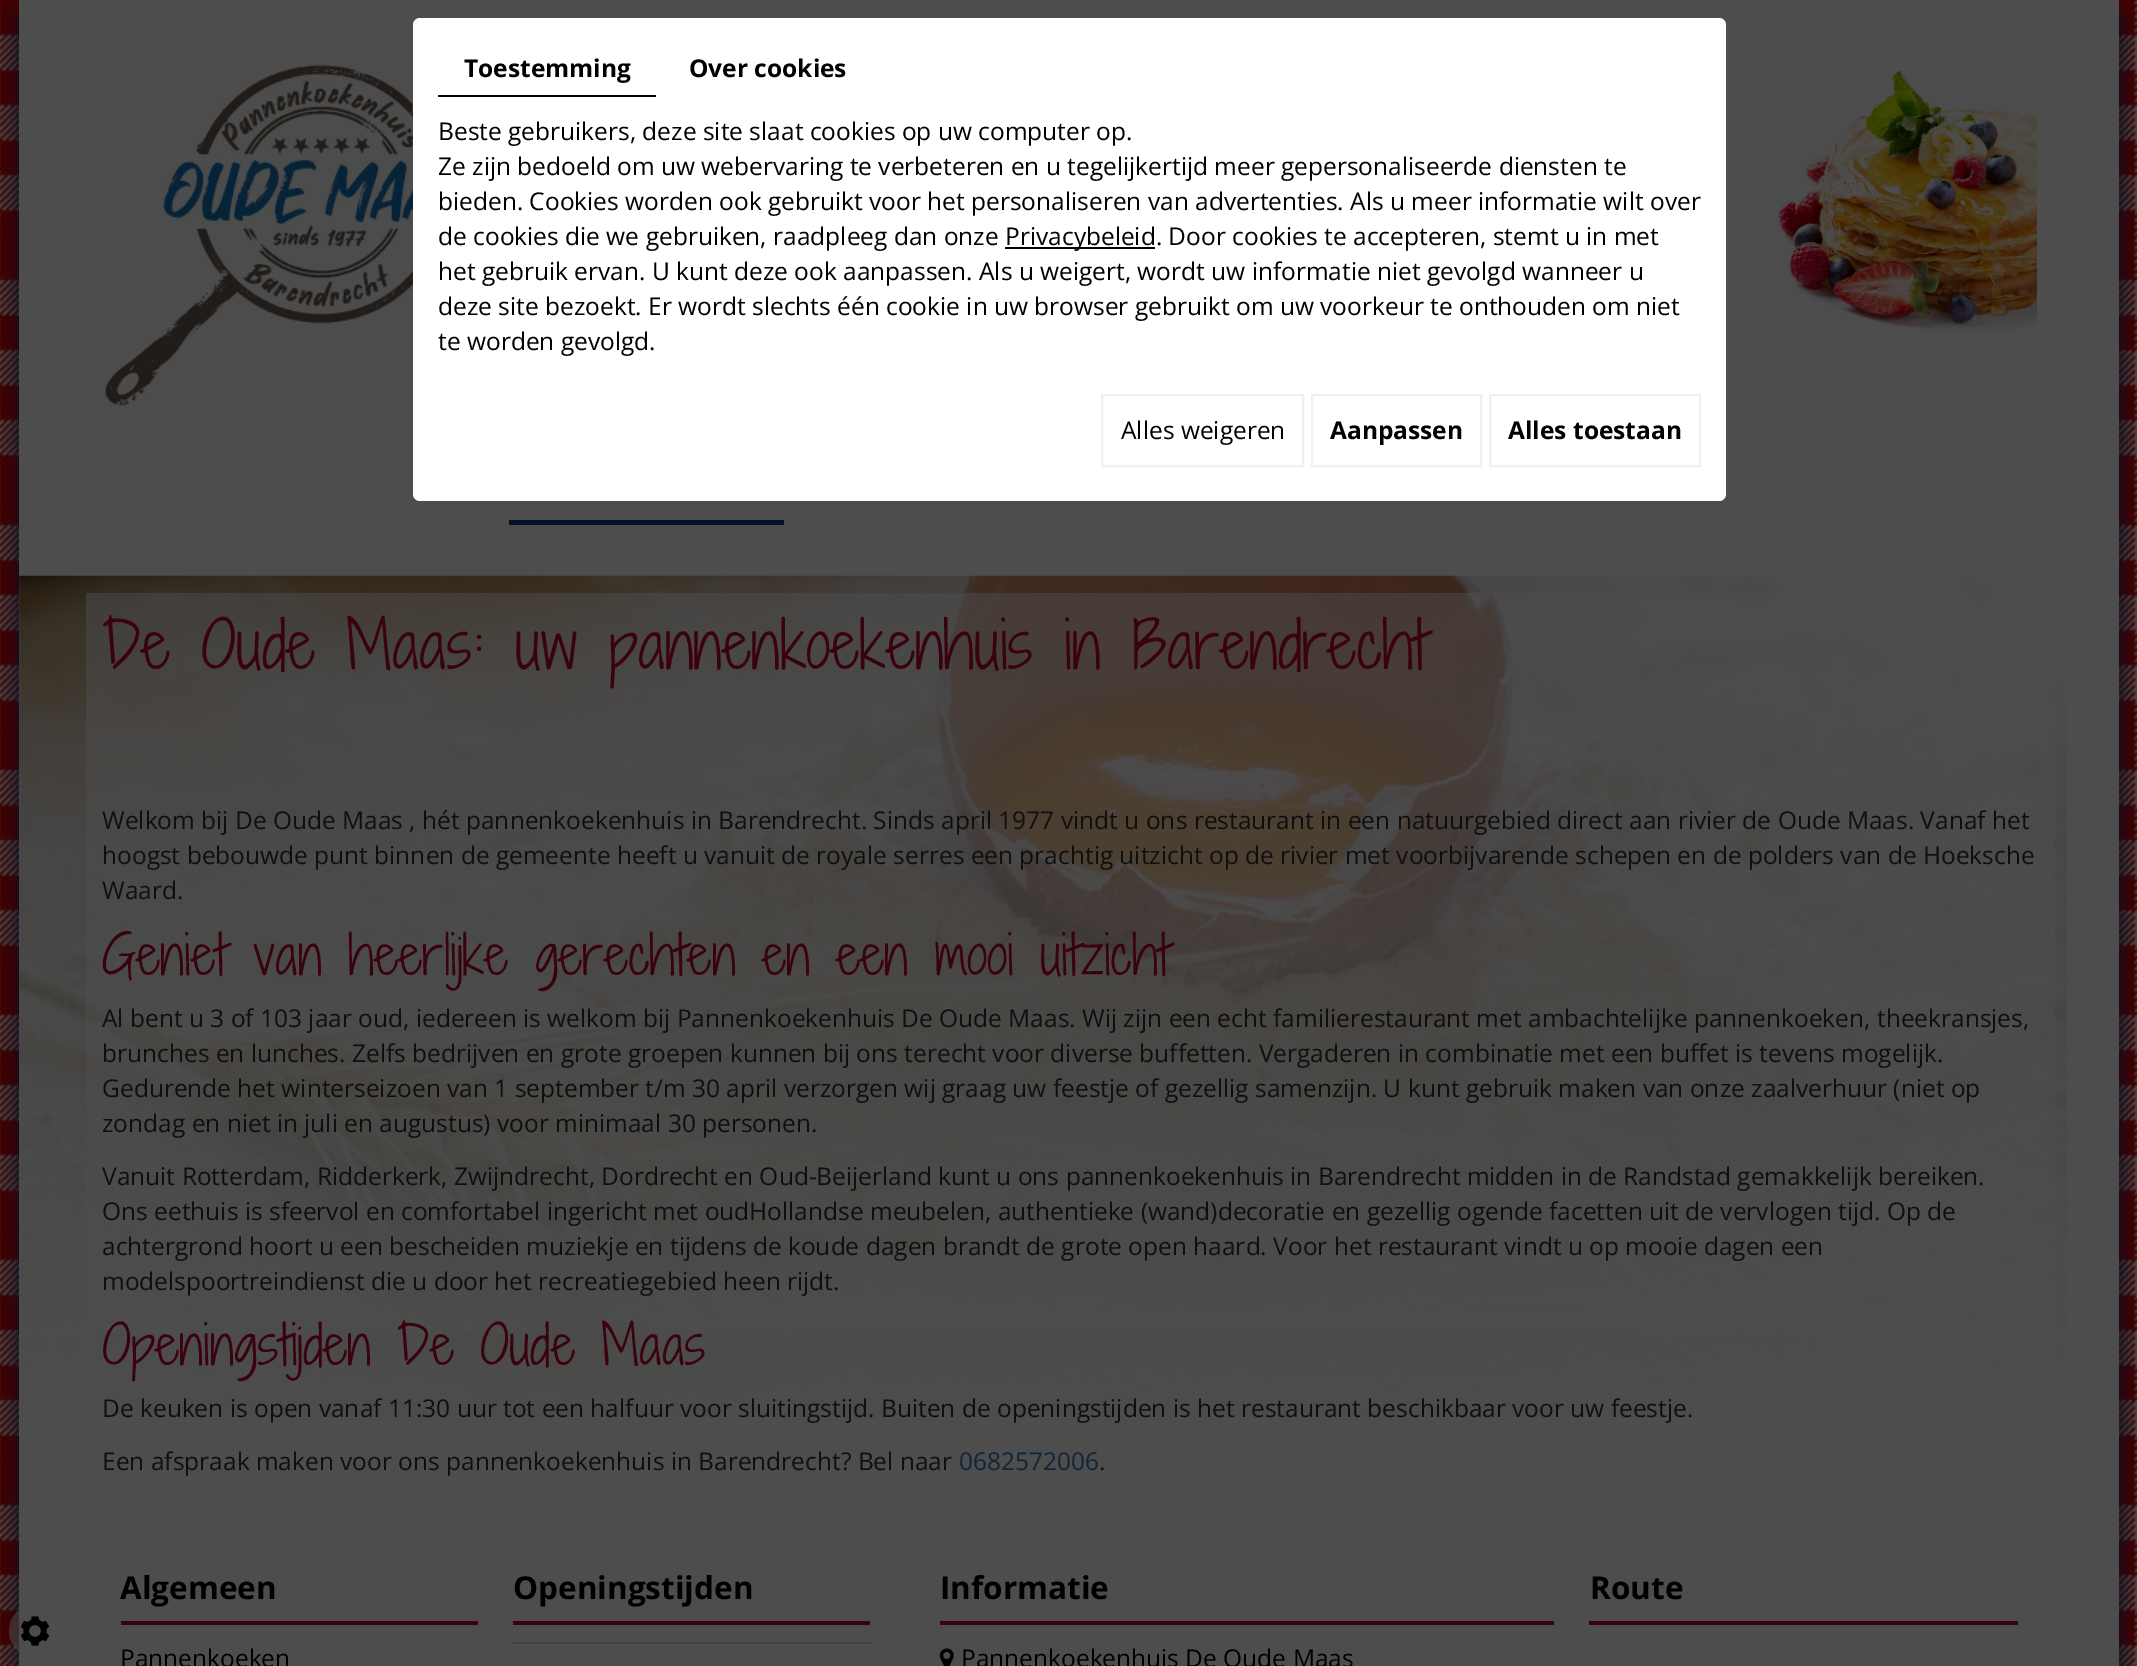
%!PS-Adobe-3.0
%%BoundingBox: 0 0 2137 1666
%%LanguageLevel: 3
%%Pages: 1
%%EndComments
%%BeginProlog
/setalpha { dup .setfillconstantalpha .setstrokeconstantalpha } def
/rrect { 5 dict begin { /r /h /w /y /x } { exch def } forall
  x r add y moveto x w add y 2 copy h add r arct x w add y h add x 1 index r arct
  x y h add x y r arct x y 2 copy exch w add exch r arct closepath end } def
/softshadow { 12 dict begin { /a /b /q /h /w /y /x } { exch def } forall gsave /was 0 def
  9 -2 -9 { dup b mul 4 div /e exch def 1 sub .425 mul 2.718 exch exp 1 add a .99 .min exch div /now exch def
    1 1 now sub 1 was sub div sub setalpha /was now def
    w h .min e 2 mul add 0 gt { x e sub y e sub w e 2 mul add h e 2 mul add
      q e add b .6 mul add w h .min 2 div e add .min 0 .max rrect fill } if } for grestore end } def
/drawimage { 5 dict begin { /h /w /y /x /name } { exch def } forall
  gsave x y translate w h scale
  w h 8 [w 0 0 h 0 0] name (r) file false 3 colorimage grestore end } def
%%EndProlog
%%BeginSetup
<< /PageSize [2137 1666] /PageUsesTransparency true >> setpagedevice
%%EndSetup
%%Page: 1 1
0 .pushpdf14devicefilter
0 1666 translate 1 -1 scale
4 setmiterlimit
1 setgray
0 0 2137 1666 rectfill
(images/1.raw) 0 0 2137 1666 drawimage
0.008 0.067 0.153 setrgbcolor
18 16 2103 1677 0 9 1 softshadow
0.302 setgray
19 0 2100 1666 rectfill
1 setgray
413 18 1313 483 7 rrect fill
0 setgray
438 95 218 2 rectfill
1005 247 150 2 rectfill
0.941 setgray
2 setlinewidth
1102 395 201 71 rectstroke
1312 395 169 71 rectstroke
1490 395 210 71 rectstroke
0.54 setalpha
0.302 setgray
newpath 35 1631 26 0 360 arc closepath fill
1 setalpha
(images/2.raw) 20 1616 30 30 drawimage
(images/3.raw) 103 61 310 347 drawimage
(images/4.raw) 1777 70 260 263 drawimage
0.008 0.067 0.153 setrgbcolor
509 520 275 5 rectfill
(images/5.raw) 19 575 2048 842 drawimage
0.5 setalpha
0.302 setgray
86 593 1969 741 rectfill
1 setalpha
0.227 0.004 0.055 setrgbcolor
121 1621 357 4 rectfill
513 1621 357 4 rectfill
0.259 setgray
511 1642 361 2 rectfill
0.227 0.004 0.055 setrgbcolor
940 1621 614 4 rectfill
(images/6.raw) 939 1648 15 18 drawimage
1589 1621 429 4 rectfill
/OpenSans-Bold [24.5 0 0 -24.5 0 0] selectfont
0 setgray
464 77 moveto (Toestemming) show
689 77 moveto (Over cookies) show
/OpenSans-Regular [24.5 0 0 -24.5 0 0] selectfont
438 140 moveto (Beste gebruikers, deze site slaat cookies op uw computer op.) show
438 175 moveto (Ze zijn bedoeld om uw webervaring te verbeteren en u tegelijkertijd meer gepersonaliseerde diensten te) show
438 210 moveto (bieden. Cookies worden ook gebruikt voor het personaliseren van advertenties. Als u meer informatie wilt over) show
438 245 moveto (de cookies die we gebruiken, raadpleeg dan onze) show
1005 245 moveto (Privacybeleid. Door cookies te accepteren, stemt u in met) show
438 280 moveto (het gebruik ervan. U kunt deze ook aanpassen. Als u weigert, wordt uw informatie niet gevolgd wanneer u) show
438 315 moveto (deze site bezoekt. Er wordt slechts één cookie in uw browser gebruikt om uw voorkeur te onthouden om niet) show
438 350 moveto (te worden gevolgd.) show
1121 439 moveto (Alles weigeren) show
/OpenSans-Bold [24.5 0 0 -24.5 0 0] selectfont
1330 439 moveto (Aanpassen) show
1508 439 moveto (Alles toestaan) show
/ShadowsIntoLightTwo-Regular [63 0 0 -63 0 0] selectfont
0.227 0.004 0.055 setrgbcolor
102 669 moveto (De Oude Maas: uw pannenkoekenhuis in Barendrecht) show
/OpenSans-Regular [24.5 0 0 -24.5 0 0] selectfont
0.059 setgray
102 829 moveto (Welkom bij De Oude Maas , hét pannenkoekenhuis in Barendrecht. Sinds april 1977 vindt u ons restaurant in een natuurgebied direct aan rivier de Oude Maas. Vanaf het) show
102 864 moveto (hoogst bebouwde punt binnen de gemeente heeft u vanuit de royale serres een prachtig uitzicht op de rivier met voorbijvarende schepen en de polders van de Hoeksche) show
102 899 moveto (Waard.) show
/ShadowsIntoLightTwo-Regular [52.5 0 0 -52.5 0 0] selectfont
0.227 0.004 0.055 setrgbcolor
102 975 moveto (Geniet van heerlijke gerechten en een mooi uitzicht) show
/OpenSans-Regular [24.5 0 0 -24.5 0 0] selectfont
0.059 setgray
102 1027 moveto (Al bent u 3 of 103 jaar oud, iedereen is welkom bij Pannenkoekenhuis De Oude Maas. Wij zijn een echt familierestaurant met ambachtelijke pannenkoeken, theekransjes,) show
102 1062 moveto (brunches en lunches. Zelfs bedrijven en grote groepen kunnen bij ons terecht voor diverse buffetten. Vergaderen in combinatie met een buffet is tevens mogelijk.) show
102 1097 moveto (Gedurende het winterseizoen van 1 september t/m 30 april verzorgen wij graag uw feestje of gezellig samenzijn. U kunt gebruik maken van onze zaalverhuur \(niet op) show
102 1132 moveto (zondag en niet in juli en augustus\) voor minimaal 30 personen.) show
102 1185 moveto (Vanuit Rotterdam, Ridderkerk, Zwijndrecht, Dordrecht en Oud-Beijerland kunt u ons pannenkoekenhuis in Barendrecht midden in de Randstad gemakkelijk bereiken.) show
102 1220 moveto (Ons eethuis is sfeervol en comfortabel ingericht met oudHollandse meubelen, authentieke \(wand\)decoratie en gezellig ogende facetten uit de vervlogen tijd. Op de) show
102 1255 moveto (achtergrond hoort u een bescheiden muziekje en tijdens de koude dagen brandt de grote open haard. Voor het restaurant vindt u op mooie dagen een) show
102 1290 moveto (modelspoortreindienst die u door het recreatiegebied heen rijdt.) show
/ShadowsIntoLightTwo-Regular [52.5 0 0 -52.5 0 0] selectfont
0.227 0.004 0.055 setrgbcolor
102 1365 moveto (Openingstijden De Oude Maas) show
/OpenSans-Regular [24.5 0 0 -24.5 0 0] selectfont
0.059 setgray
102 1417 moveto (De keuken is open vanaf 11:30 uur tot een halfuur voor sluitingstijd. Buiten de openingstijden is het restaurant beschikbaar voor uw feestje.) show
102 1470 moveto (Een afspraak maken voor ons pannenkoekenhuis in Barendrecht? Bel naar) show
0.059 0.145 0.216 setrgbcolor
959 1470 moveto (0682572006) show
0.059 setgray
1099 1470 moveto (.) show
/OpenSans-Bold [31.5 0 0 -31.5 0 0] selectfont
0 setgray
120 1599 moveto (Algemeen) show
/OpenSans-Regular [24.5 0 0 -24.5 0 0] selectfont
120 1667 moveto (Pannenkoeken) show
/OpenSans-Bold [31.5 0 0 -31.5 0 0] selectfont
513 1599 moveto (Openingstijden) show
940 1599 moveto (Informatie) show
/OpenSans-Regular [24.5 0 0 -24.5 0 0] selectfont
961 1667 moveto (Pannenkoekenhuis De Oude Maas) show
/OpenSans-Bold [31.5 0 0 -31.5 0 0] selectfont
1590 1599 moveto (Route) show
.poppdf14devicefilter showpage
%%EOF
